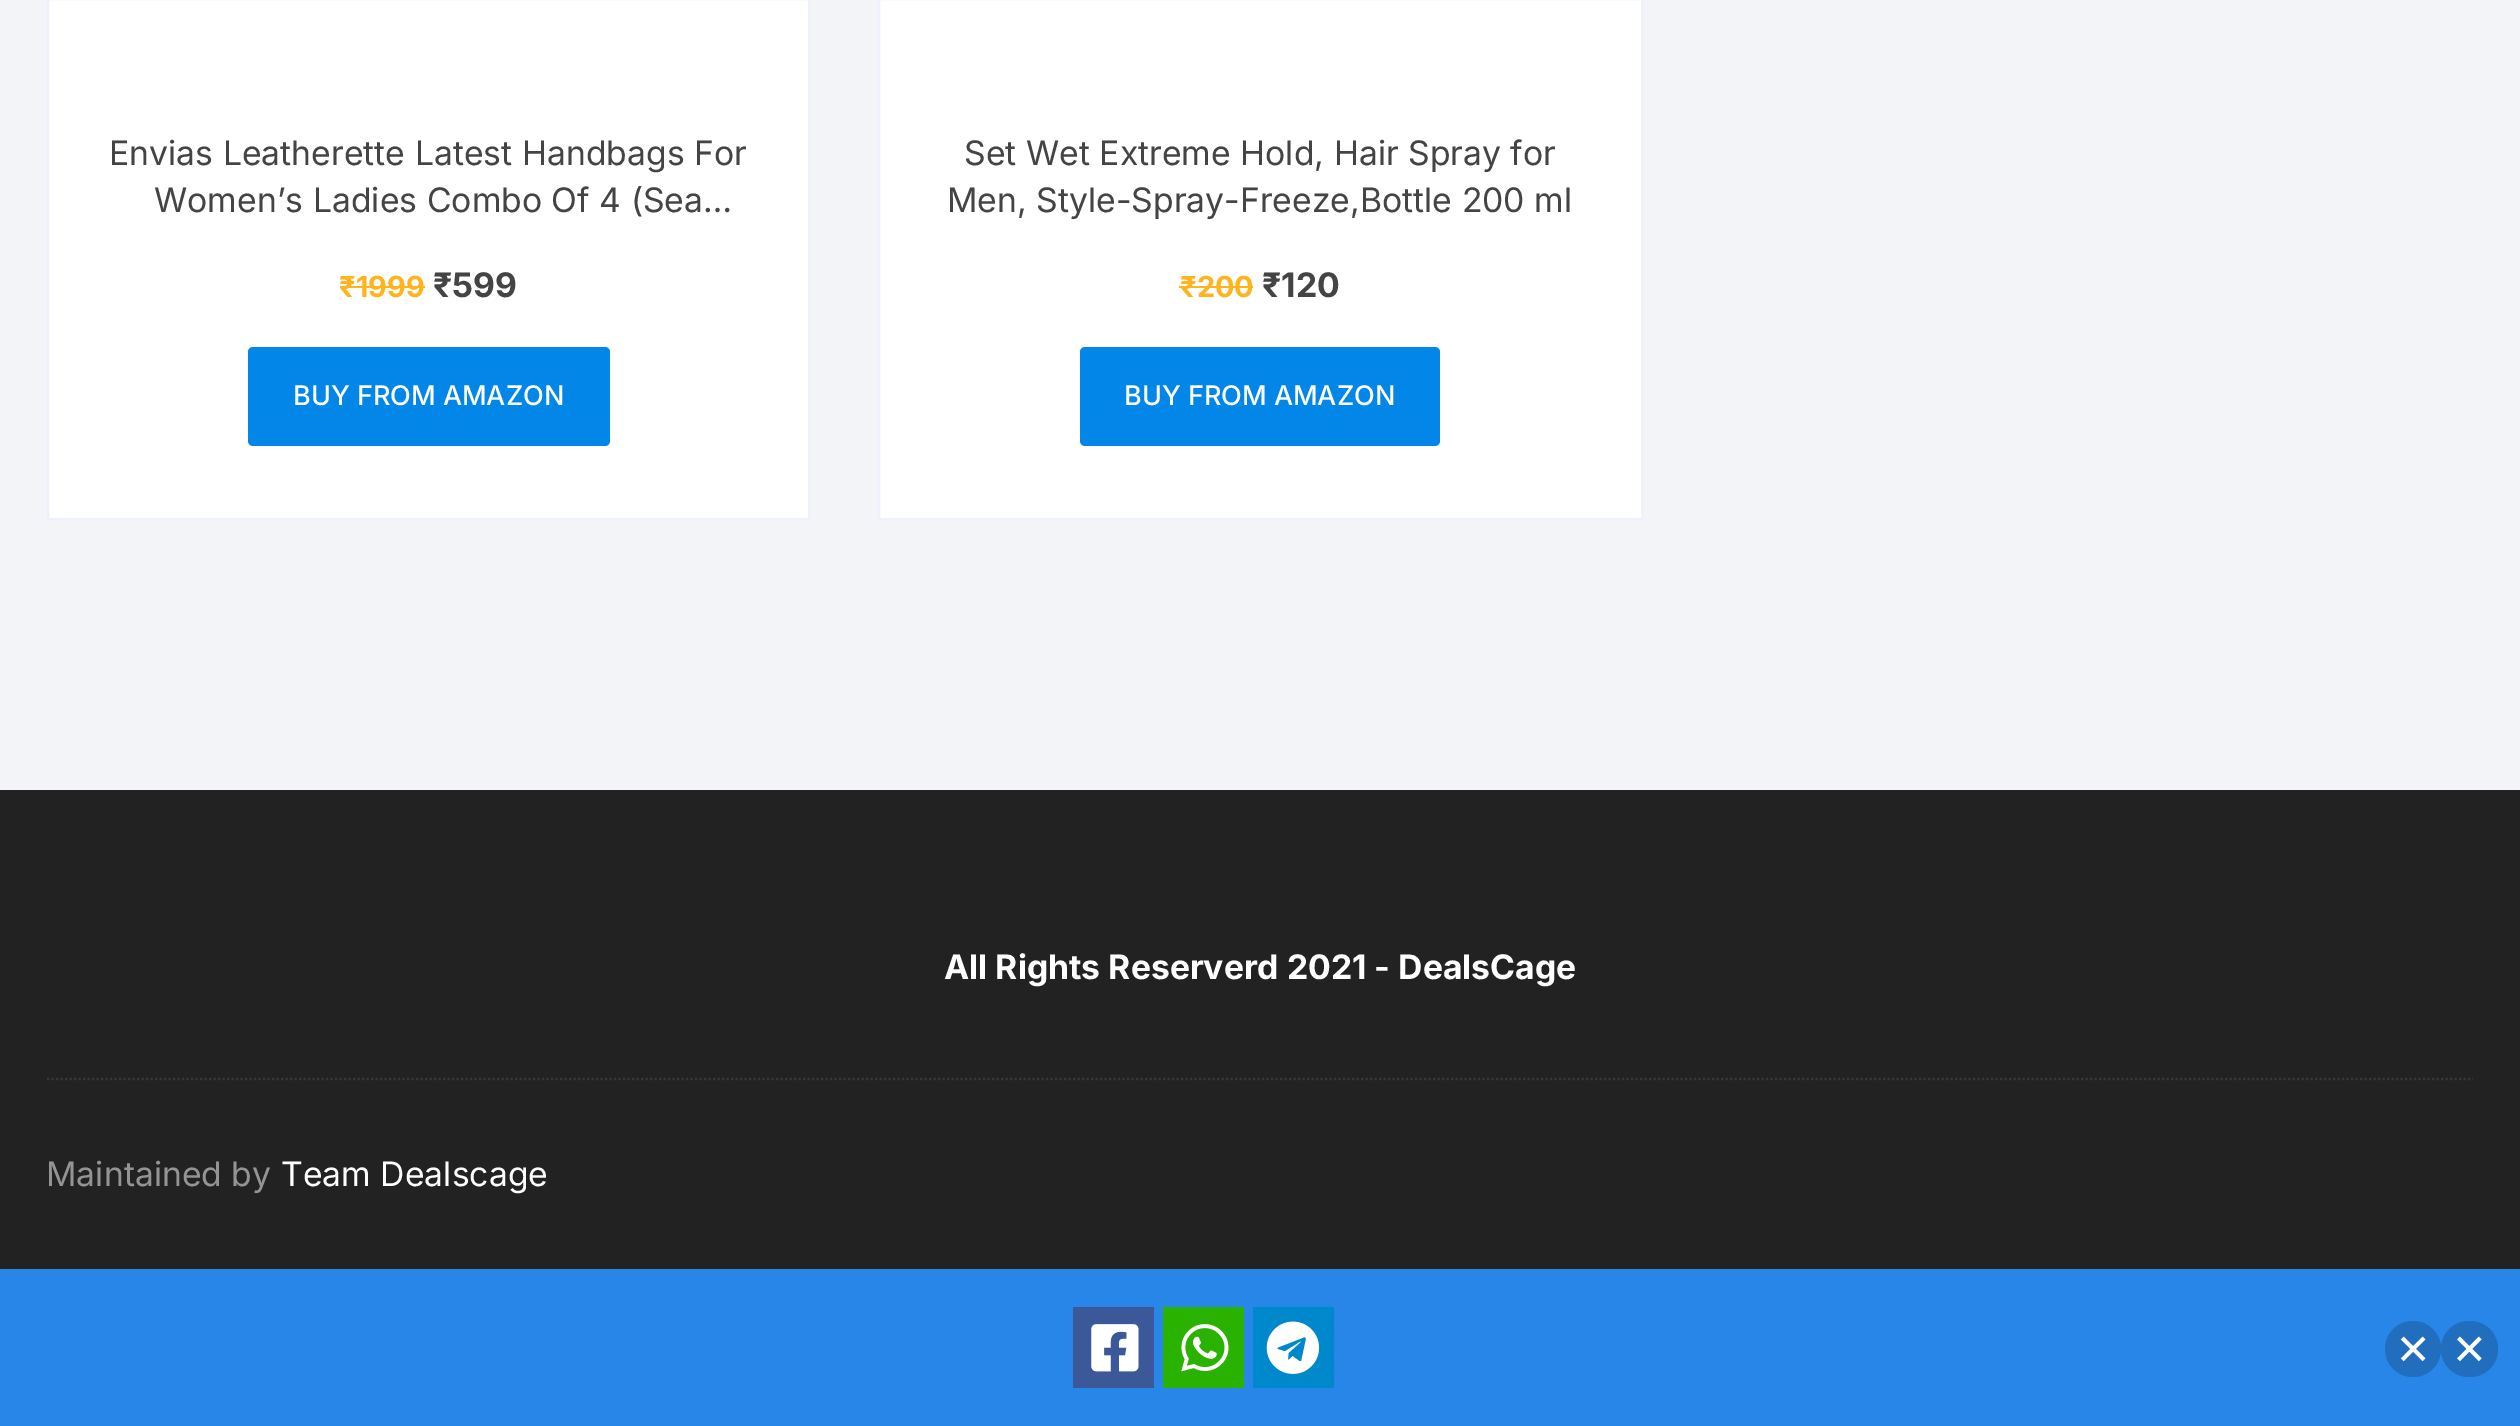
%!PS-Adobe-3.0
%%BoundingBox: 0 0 2520 1426
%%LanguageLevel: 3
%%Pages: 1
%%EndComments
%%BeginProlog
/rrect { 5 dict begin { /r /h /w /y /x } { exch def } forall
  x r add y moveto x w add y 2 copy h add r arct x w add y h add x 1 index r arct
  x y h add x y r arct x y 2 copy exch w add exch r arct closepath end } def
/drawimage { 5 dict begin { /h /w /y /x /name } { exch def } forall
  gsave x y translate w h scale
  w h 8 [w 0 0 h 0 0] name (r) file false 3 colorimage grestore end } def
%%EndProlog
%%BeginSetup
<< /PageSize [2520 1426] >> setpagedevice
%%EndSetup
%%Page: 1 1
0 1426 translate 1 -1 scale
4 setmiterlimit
0.153 0.525 0.906 setrgbcolor
0 0 2520 1426 rectfill
0.953 0.957 0.973 setrgbcolor
0 0 2520 790 rectfill
1 setgray
newpath 48 -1 moveto 809 -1 lineto 809 519 lineto 48 519 lineto closepath gsave fill grestore
0.933 0.945 0.992 setrgbcolor
2 setlinewidth
stroke
1 0.706 0.114 setrgbcolor
340 286 85 2 rectfill
0.008 0.525 0.906 setrgbcolor
248 347 362 99 5 rrect fill
1 setgray
newpath 879 -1 moveto 1642 -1 lineto 1642 519 lineto 879 519 lineto closepath gsave fill grestore
0.933 0.945 0.992 setrgbcolor
stroke
1 0.706 0.114 setrgbcolor
1179 286 74 2 rectfill
0.008 0.525 0.906 setrgbcolor
1080 347 360 99 5 rrect fill
0.133 setgray
0 790 2520 479 rectfill
0.22 setgray
2.2 setlinewidth
[2.25 2.25] 0 setdash
newpath 47 1079 moveto 2473 1079 lineto stroke
0.231 0.349 0.596 setrgbcolor
1073 1307 81 81 rectfill
(images/1.raw) 1091 1324 48 48 drawimage
0.165 0.698 0 setrgbcolor
1163 1307 81 81 rectfill
(images/2.raw) 1181 1324 48 48 drawimage
0 0.533 0.8 setrgbcolor
1253 1307 81 81 rectfill
(images/3.raw) 1266 1321 54 53 drawimage
0.125 0.431 0.741 setrgbcolor
newpath 2413 1349 28 0 360 arc closepath fill
(images/4.raw) 2400 1336 26 26 drawimage
2441 1321 57 56 28 rrect fill
(images/5.raw) 2457 1336 25 26 drawimage
/Inter-Regular [33.75 0 0 -33.75 0 0] selectfont
0.267 setgray
109 165 moveto (Envias Leatherette Latest Handbags For) show
154 212 moveto (Women’s Ladies Combo Of 4 \(Sea…) show
/Inter-Bold [29 0 0 -29 0 0] selectfont
1 0.706 0.114 setrgbcolor
339 297 moveto (₹1999) show
/Inter-Bold [33.75 0 0 -33.75 0 0] selectfont
0.267 setgray
433 297 moveto (₹599) show
/Inter-Medium [27 0 0 -27 0 0] selectfont
1 setgray
293 405 moveto (BUY FROM AMAZON) show
/Inter-Regular [33.75 0 0 -33.75 0 0] selectfont
0.267 setgray
964 165 moveto (Set Wet Extreme Hold, Hair Spray for) show
947 212 moveto (Men, Style-Spray-Freeze,Bottle 200 ml) show
/Inter-Bold [29 0 0 -29 0 0] selectfont
1 0.706 0.114 setrgbcolor
1180 297 moveto (₹200) show
/Inter-Bold [33.75 0 0 -33.75 0 0] selectfont
0.267 setgray
1262 297 moveto (₹120) show
/Inter-Medium [27 0 0 -27 0 0] selectfont
1 setgray
1124 405 moveto (BUY FROM AMAZON) show
/Inter-Bold [33.75 0 0 -33.75 0 0] selectfont
944 979 moveto (All Rights Reserverd 2021 - DealsCage) show
/Inter-Regular [33.75 0 0 -33.75 0 0] selectfont
0.58 setgray
46 1186 moveto (Maintained by) show
1 setgray
281 1186 moveto (Team Dealscage) show
showpage
%%EOF
